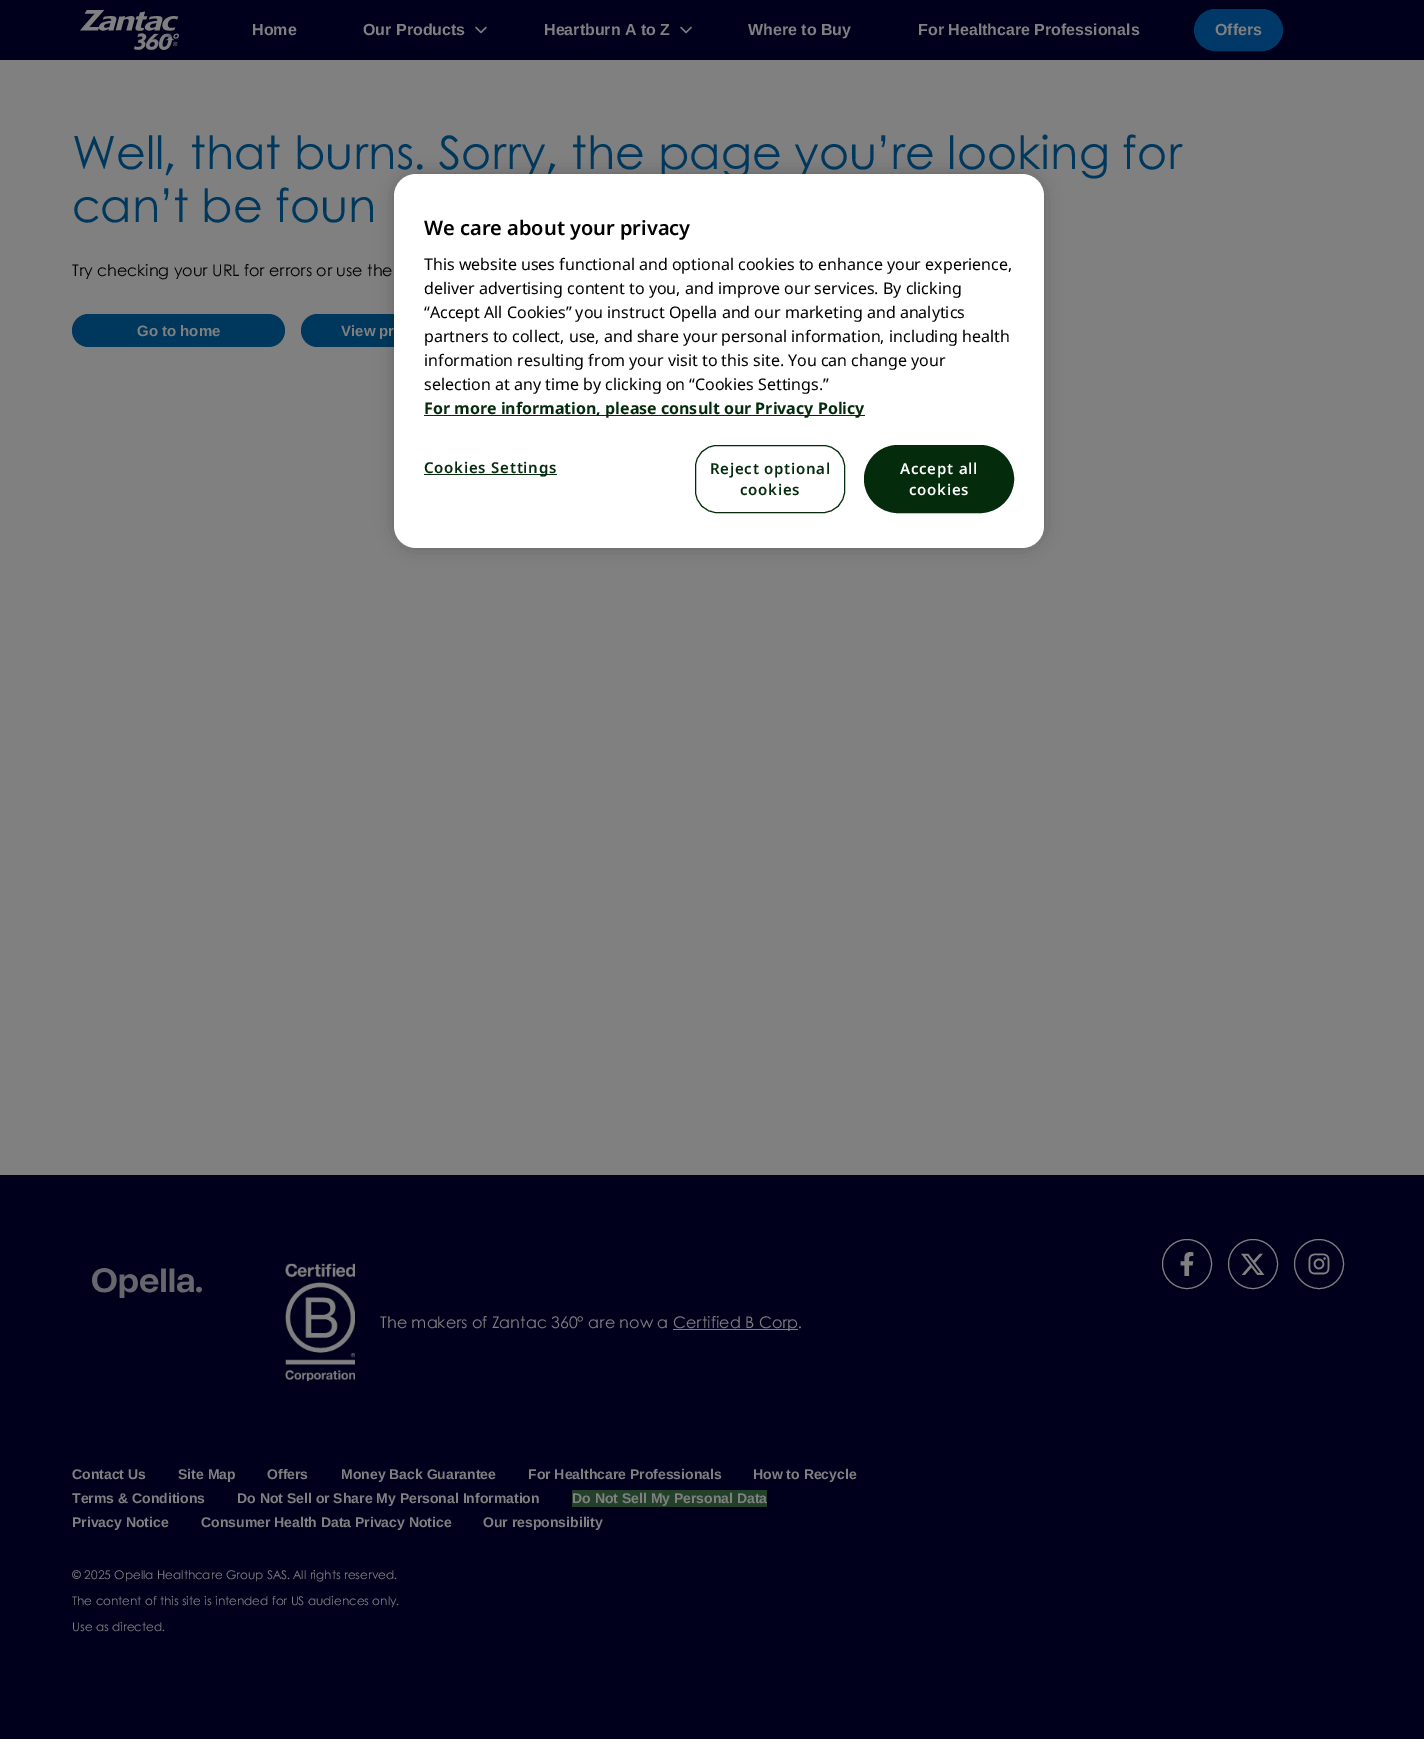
%!PS-Adobe-3.0
%%BoundingBox: 0 0 1424 1739
%%LanguageLevel: 3
%%Pages: 1
%%EndComments
%%BeginProlog
/setalpha { dup .setfillconstantalpha .setstrokeconstantalpha } def
/rrect { 5 dict begin { /r /h /w /y /x } { exch def } forall
  x r add y moveto x w add y 2 copy h add r arct x w add y h add x 1 index r arct
  x y h add x y r arct x y 2 copy exch w add exch r arct closepath end } def
/softshadow { 12 dict begin { /a /b /q /h /w /y /x } { exch def } forall gsave /was 0 def
  9 -2 -9 { dup b mul 4 div /e exch def 1 sub .425 mul 2.718 exch exp 1 add a .99 .min exch div /now exch def
    1 1 now sub 1 was sub div sub setalpha /was now def
    w h .min e 2 mul add 0 gt { x e sub y e sub w e 2 mul add h e 2 mul add
      q e add b .6 mul add w h .min 2 div e add .min 0 .max rrect fill } if } for grestore end } def
/drawimage { 5 dict begin { /h /w /y /x /name } { exch def } forall
  gsave x y translate w h scale
  w h 8 [w 0 0 h 0 0] name (r) file false 3 colorimage grestore end } def
%%EndProlog
%%BeginSetup
<< /PageSize [1424 1739] /PageUsesTransparency true >> setpagedevice
%%EndSetup
%%Page: 1 1
0 .pushpdf14devicefilter
0 1739 translate 1 -1 scale
4 setmiterlimit
0.502 setgray
0 0 1424 1739 rectfill
0 0 0.114 setrgbcolor
0 0 1424 60 rectfill
(images/1.raw) 80 10 99 40 drawimage
0.502 setgray
1.3 setlinewidth
1 setlinecap
1 setlinejoin
newpath 486 27.5 moveto 481 32.5 lineto 476 27.5 lineto stroke
newpath 691 27.5 moveto 686 32.5 lineto 681 27.5 lineto stroke
0 0.224 0.404 setrgbcolor
1194.5 9.5 88 41 20.5 rrect gsave fill grestore
1 setlinewidth
0 setlinecap
0 setlinejoin
stroke
0 0.216 0.361 setrgbcolor
72 314 213 33 16.5 rrect fill
301 314 182 33 16.5 rrect fill
0 setgray
394 174 650 374 22 9 0.2 softshadow
0 0 0.114 setrgbcolor
0 1175 1424 564 rectfill
(images/2.raw) 92 1268 110 30 drawimage
0.502 setgray
newpath 1187 1264 24.5 0 360 arc closepath stroke
(images/3.raw) 1180 1252 14 24 drawimage
newpath 1253 1264 24.5 0 360 arc closepath stroke
(images/4.raw) 1241 1253 24 22 drawimage
newpath 1319 1264 24.5 0 360 arc closepath stroke
(images/5.raw) 1308 1253 22 22 drawimage
(images/6.raw) 285 1263 70 118 drawimage
673 1329 125 1 rectfill
0.137 0.255 0.165 setrgbcolor
572 1490 195 17 rectfill
/LiberationSans-Bold [16 0 0 -16 0 0] selectfont
0.502 setgray
252 35 moveto (Home) show
363 35 moveto (Our Products) show
544 35 moveto (Heartburn A to Z) show
748 35 moveto (Where to Buy) show
918 35 moveto (For Healthcare Professionals) show
1215 35 moveto (Offers) show
/CenturyGothic-Regular [46 0 0 -46 0 0] selectfont
0 0.216 0.361 setrgbcolor
72 169 moveto (Well, that burns. Sorry, the page you’re looking for) show
72 222 moveto (can’t be foun) show
/CenturyGothic-Regular [16 0 0 -16 0 0] selectfont
0 setgray
72 276 moveto (Try checking your URL for errors or use the) show
/LiberationSans-Bold [15 0 0 -15 0 0] selectfont
0.502 setgray
137 336 moveto (Go to home) show
341 336 moveto (View pr) show
1 setgray
394 174 650 374 22 rrect fill
/NotoSans-SemiBold [20 0 0 -20 0 0] selectfont
0 setgray
424 235 moveto (We care about your privacy) show
/NotoSans-Regular [16 0 0 -16 0 0] selectfont
424 270 moveto (This website uses functional and optional cookies to enhance your experience,) show
424 294 moveto (deliver advertising content to you, and improve our services. By clicking) show
424 318 moveto (“Accept All Cookies” you instruct Opella and our marketing and analytics) show
424 342 moveto (partners to collect, use, and share your personal information, including health) show
424 366 moveto (information resulting from your visit to this site. You can change your) show
424 390 moveto (selection at any time by clicking on “Cookies Settings.”) show
0.016 0.169 0.043 setrgbcolor
424 415 441 1 rectfill
/NotoSans-Bold [16 0 0 -16 0 0] selectfont
424 414 moveto (For more information, please consult our Privacy Policy) show
424 474 133 1 rectfill
/NotoSans-SemiBold [15 0 0 -15 0 0] selectfont
424 473 moveto 0.75 0 (Cookies Settings) ashow
695.5 445.5 149 67 21.5 rrect stroke
710 474 moveto 0.75 0 (Reject optional) ashow
740 495 moveto 0.75 0 (cookies) ashow
864.5 445.5 149 67 33.5 rrect gsave fill grestore
stroke
1 setgray
900 474 moveto 0.75 0 (Accept all) ashow
909 495 moveto 0.75 0 (cookies) ashow
/CenturyGothic-Regular [16 0 0 -16 0 0] selectfont
0.502 setgray
380 1328 moveto (The makers of Zantac 360° are now a) show
673 1328 moveto (Certified B Corp.) show
/LiberationSans-Bold [14 0 0 -14 0 0] selectfont
72 1479 moveto (Contact Us) show
178 1479 moveto (Site Map) show
267 1479 moveto (Offers) show
341 1479 moveto (Money Back Guarantee) show
528 1479 moveto (For Healthcare Professionals) show
753 1479 moveto (How to Recycle) show
72 1503 moveto (Terms & Conditions) show
237 1503 moveto (Do Not Sell or Share My Personal Information) show
572 1503 moveto (Do Not Sell My Personal Data) show
72 1527 moveto (Privacy Notice) show
201 1527 moveto (Consumer Health Data Privacy Notice) show
483 1527 moveto (Our responsibility) show
/CenturyGothic-Regular [12 0 0 -12 0 0] selectfont
72 1579 moveto (© 2025 Opella Healthcare Group SAS. All rights reserved.) show
72 1605 moveto (The content of this site is intended for US audiences only.) show
72 1631 moveto (Use as directed.) show
.poppdf14devicefilter showpage
%%EOF
